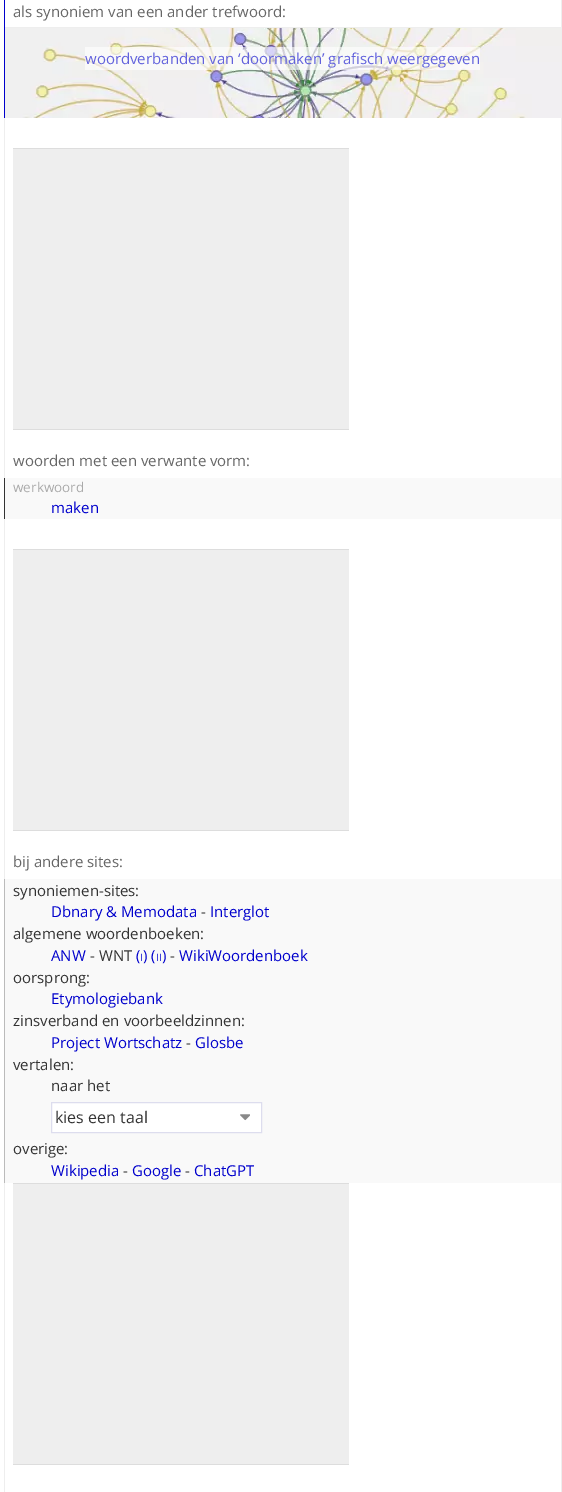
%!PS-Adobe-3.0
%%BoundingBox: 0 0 562 1492
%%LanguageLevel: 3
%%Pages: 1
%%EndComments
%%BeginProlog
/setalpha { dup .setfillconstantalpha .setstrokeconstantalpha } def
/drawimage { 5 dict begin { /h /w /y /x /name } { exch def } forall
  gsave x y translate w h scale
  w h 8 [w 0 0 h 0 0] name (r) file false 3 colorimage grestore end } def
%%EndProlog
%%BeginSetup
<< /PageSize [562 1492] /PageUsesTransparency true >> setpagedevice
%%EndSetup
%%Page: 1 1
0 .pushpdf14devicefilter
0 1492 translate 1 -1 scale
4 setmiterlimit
1 setgray
0 0 562 1492 rectfill
0.933 setgray
561 0 1 1492 rectfill
4 118 1 1374 rectfill
5 27 556 1 rectfill
(images/1.raw) 5 28 556 90 drawimage
0 0 0.8 setrgbcolor
4 0 1 118 rectfill
0.6 setalpha
1 setgray
85 47 395 23 rectfill
1 setalpha
0.933 setgray
13 149 336 280 rectfill
0.867 setgray
13 148 336 1 rectfill
13 429 336 1 rectfill
0.976 setgray
5 478 556 41 rectfill
0.2 setgray
4 478 1 41 rectfill
0.933 setgray
13 550 336 280 rectfill
0.867 setgray
13 549 336 1 rectfill
13 830 336 1 rectfill
0.976 setgray
5 879 556 304 rectfill
0.733 setgray
4 879 1 304 rectfill
1 setgray
52 1103 209 29 rectfill
(images/2.raw) 240 1114 10 7 drawimage
0.867 0.867 0.933 setrgbcolor
51.5 1102.5 210 30 rectstroke
0.933 setgray
13 1184 336 280 rectfill
0.867 setgray
13 1183 336 1 rectfill
13 1464 336 1 rectfill
/OpenSans-Regular [15 0 0 -15 0 0] selectfont
0.4 setgray
13 17 moveto (als synoniem van een ander trefwoord:) show
0.384 0.384 0.863 setrgbcolor
85 64 moveto (woordverbanden van ‘doormaken’ grafisch weergegeven) show
0.4 setgray
13 466 moveto (woorden met een verwante vorm:) show
/OpenSans-Regular [13.5 0 0 -13.5 0 0] selectfont
0.667 setgray
13 492 moveto (werkwoord) show
/OpenSans-Regular [15 0 0 -15 0 0] selectfont
0 0 0.8 setrgbcolor
51 513 moveto (maken) show
0.4 setgray
13 867 moveto (bij andere sites:) show
0.2 setgray
13 896 moveto (synoniemen-sites:) show
0 0 0.8 setrgbcolor
51 917 moveto (Dbnary & Memodata) show
0.2 setgray
201 917 moveto (-) show
0 0 0.8 setrgbcolor
210 917 moveto (Interglot) show
0.2 setgray
13 939 moveto (algemene woordenboeken:) show
0 0 0.8 setrgbcolor
51 961 moveto (ANW) show
0.2 setgray
90 961 moveto (- WNT) show
0 0 0.8 setrgbcolor
136 961 moveto (\() show
/OpenSans-Regular [10 0 0 -10 0 0] selectfont
140 961 moveto (I) show
/OpenSans-Regular [15 0 0 -15 0 0] selectfont
143 961 moveto (\) \() show
/OpenSans-Regular [10 0 0 -10 0 0] selectfont
156 961 moveto (II) show
/OpenSans-Regular [15 0 0 -15 0 0] selectfont
162 961 moveto (\)) show
0.2 setgray
170 961 moveto (-) show
0 0 0.8 setrgbcolor
179 961 moveto (WikiWoordenboek) show
0.2 setgray
13 983 moveto (oorsprong:) show
0 0 0.8 setrgbcolor
51 1004 moveto (Etymologiebank) show
0.2 setgray
13 1026 moveto (zinsverband en voorbeeldzinnen:) show
0 0 0.8 setrgbcolor
51 1048 moveto (Project Wortschatz) show
0.2 setgray
186 1048 moveto (-) show
0 0 0.8 setrgbcolor
195 1048 moveto (Glosbe) show
0.2 setgray
13 1070 moveto (vertalen:) show
51 1091 moveto (naar het) show
/OpenSans-Regular [16 0 0 -16 0 0] selectfont
55 1123 moveto (kies een taal) show
/OpenSans-Regular [15 0 0 -15 0 0] selectfont
13 1154 moveto (overige:) show
0 0 0.8 setrgbcolor
51 1176 moveto (Wikipedia) show
0.2 setgray
123 1176 moveto (-) show
0 0 0.8 setrgbcolor
132 1176 moveto (Google) show
0.2 setgray
185 1176 moveto (-) show
0 0 0.8 setrgbcolor
194 1176 moveto (ChatGPT) show
.poppdf14devicefilter showpage
%%EOF
